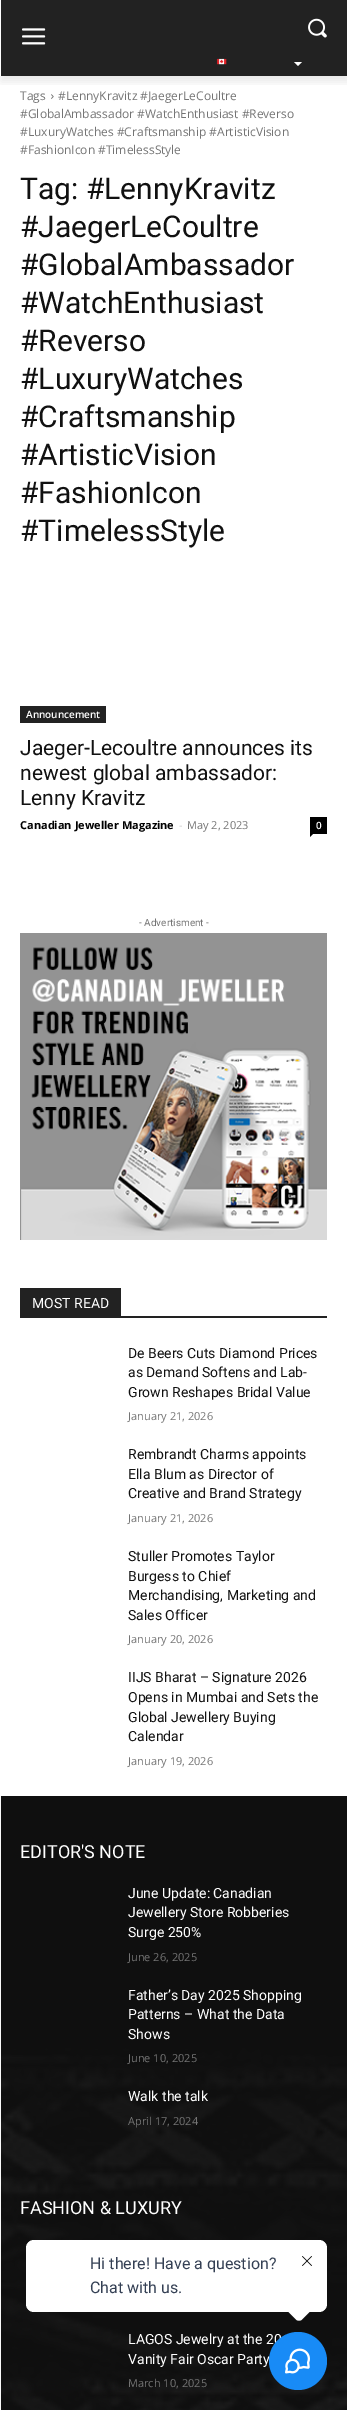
%!PS-Adobe-3.0
%%BoundingBox: 0 0 347 2410
%%LanguageLevel: 3
%%Pages: 1
%%EndComments
%%BeginProlog
/setalpha { dup .setfillconstantalpha .setstrokeconstantalpha } def
/rrect { 5 dict begin { /r /h /w /y /x } { exch def } forall
  x r add y moveto x w add y 2 copy h add r arct x w add y h add x 1 index r arct
  x y h add x y r arct x y 2 copy exch w add exch r arct closepath end } def
/softshadow { 12 dict begin { /a /b /q /h /w /y /x } { exch def } forall gsave /was 0 def
  9 -2 -9 { dup b mul 4 div /e exch def 1 sub .425 mul 2.718 exch exp 1 add a .99 .min exch div /now exch def
    1 1 now sub 1 was sub div sub setalpha /was now def
    w h .min e 2 mul add 0 gt { x e sub y e sub w e 2 mul add h e 2 mul add
      q e add b .6 mul add w h .min 2 div e add .min 0 .max rrect fill } if } for grestore end } def
/drawimage { 5 dict begin { /h /w /y /x /name } { exch def } forall
  gsave x y translate w h scale
  w h 8 [w 0 0 h 0 0] name (r) file false 3 colorimage grestore end } def
%%EndProlog
%%BeginSetup
<< /PageSize [347 2410] /PageUsesTransparency true >> setpagedevice
%%EndSetup
%%Page: 1 1
0 .pushpdf14devicefilter
0 2410 translate 1 -1 scale
4 setmiterlimit
1 setgray
0 0 347 2410 rectfill
0.133 setgray
1 0 346 76 rectfill
(images/1.raw) 22 28 24 17 drawimage
(images/2.raw) 308 18 19 20 drawimage
1 setgray
newpath 294 62 moveto 302 62 lineto 298 66 lineto closepath fill
(images/3.raw) 216 58 11 7 drawimage
(images/4.raw) 51 94 3 5 drawimage
gsave
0 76 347 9 rectclip
0 setgray
1 6 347 76 0 4 0.08 softshadow
grestore
0.133 setgray
20 706 86 17 rectfill
0 setgray
310 817 17 17 rectfill
newpath 310 834 moveto 313 834 lineto 310 837 lineto closepath fill
(images/5.raw) 20 933 307 307 drawimage
0.133 setgray
20 1316 307 2 rectfill
20 1288 101 28 rectfill
0.067 setgray
1 1796 346 614 rectfill
(images/6.raw) 0 1796 347 614 drawimage
1 setgray
26 2240 301 72 8 rrect fill
newpath 302 2296.5 moveto 310.5 2305 lineto 312 2306.5 312 2309.5 310.5 2311 curveto 302 2319.5 lineto 300.5 2321 297.5 2321 296 2319.5 curveto 287.5 2311 lineto 286 2309.5 286 2306.5 287.5 2305 curveto 296 2296.5 lineto 297.5 2295 300.5 2295 302 2296.5 curveto closepath fill
(images/7.raw) 302 2256 10 10 drawimage
/OpenSans-Regular [12 0 0 -12 0 0] selectfont
0.455 setgray
20 100 moveto (Tags) show
58 100 moveto (#LennyKravitz #JaegerLeCoultre) show
20 118 moveto (#GlobalAmbassador #WatchEnthusiast #Reverso) show
20 136 moveto (#LuxuryWatches #Craftsmanship #ArtisticVision) show
20 154 moveto (#FashionIcon #TimelessStyle) show
/Roboto-Regular [30 0 0 -30 0 0] selectfont
0.067 setgray
20 199 moveto (Tag: #LennyKravitz) show
20 237 moveto (#JaegerLeCoultre) show
20 275 moveto (#GlobalAmbassador) show
20 313 moveto (#WatchEnthusiast) show
20 351 moveto (#Reverso) show
20 389 moveto (#LuxuryWatches) show
20 427 moveto (#Craftsmanship) show
20 465 moveto (#ArtisticVision) show
20 503 moveto (#FashionIcon) show
20 541 moveto (#TimelessStyle) show
/OpenSans-SemiBold [10 0 0 -10 0 0] selectfont
1 setgray
26 718 moveto (Announcement) show
/Roboto-Regular [21 0 0 -21 0 0] selectfont
0.067 setgray
20 755 moveto (Jaeger-Lecoultre announces its) show
20 780 moveto (newest global ambassador:) show
20 805 moveto (Lenny Kravitz) show
/OpenSans-Bold [11 0 0 -11 0 0] selectfont
0 setgray
20 829 moveto (Canadian Jeweller Magazine) show
/OpenSans-Regular [11 0 0 -11 0 0] selectfont
0.8 setgray
179 829 moveto (-) show
0.455 setgray
187 829 moveto (May 2, 2023) show
/OpenSans-SemiBold [10 0 0 -10 0 0] selectfont
1 setgray
316 829 moveto (0) show
/Roboto-Regular [10 0 0 -10 0 0] selectfont
0.455 setgray
139 926 moveto (- Advertisment -) show
/Roboto-Regular [14 0 0 -14 0 0] selectfont
1 setgray
32 1308 moveto (MOST READ) show
0.067 setgray
128 1358 moveto (De Beers Cuts Diamond Prices) show
128 1377 moveto (as Demand Softens and Lab-) show
128 1397 moveto (Grown Reshapes Bridal Value) show
/OpenSans-Regular [11 0 0 -11 0 0] selectfont
0.455 setgray
128 1420 moveto (January 21, 2026) show
/Roboto-Regular [14 0 0 -14 0 0] selectfont
0.067 setgray
128 1459 moveto (Rembrandt Charms appoints) show
128 1479 moveto (Ella Blum as Director of) show
128 1498 moveto (Creative and Brand Strategy) show
/OpenSans-Regular [11 0 0 -11 0 0] selectfont
0.455 setgray
128 1522 moveto (January 21, 2026) show
/Roboto-Regular [14 0 0 -14 0 0] selectfont
0.067 setgray
128 1561 moveto (Stuller Promotes Taylor) show
128 1581 moveto (Burgess to Chief) show
128 1600 moveto (Merchandising, Marketing and) show
128 1620 moveto (Sales Officer) show
/OpenSans-Regular [11 0 0 -11 0 0] selectfont
0.455 setgray
128 1643 moveto (January 20, 2026) show
/Roboto-Regular [14 0 0 -14 0 0] selectfont
0.067 setgray
128 1682 moveto (IIJS Bharat – Signature 2026) show
128 1702 moveto (Opens in Mumbai and Sets the) show
128 1722 moveto (Global Jewellery Buying) show
128 1741 moveto (Calendar) show
/OpenSans-Regular [11 0 0 -11 0 0] selectfont
0.455 setgray
128 1765 moveto (January 19, 2026) show
/Roboto-Regular [18 0 0 -18 0 0] selectfont
1 setgray
20 1858 moveto (EDITOR'S NOTE) show
/Roboto-Regular [14 0 0 -14 0 0] selectfont
128 1898 moveto (June Update: Canadian) show
128 1917 moveto (Jewellery Store Robberies) show
128 1937 moveto (Surge 250%) show
/OpenSans-Regular [11 0 0 -11 0 0] selectfont
0.455 setgray
128 1961 moveto (June 26, 2025) show
/Roboto-Regular [14 0 0 -14 0 0] selectfont
1 setgray
128 2000 moveto (Father’s Day 2025 Shopping) show
128 2019 moveto (Patterns – What the Data) show
128 2039 moveto (Shows) show
/OpenSans-Regular [11 0 0 -11 0 0] selectfont
0.455 setgray
128 2062 moveto (June 10, 2025) show
/Roboto-Regular [14 0 0 -14 0 0] selectfont
1 setgray
128 2101 moveto (Walk the talk) show
/OpenSans-Regular [11 0 0 -11 0 0] selectfont
0.455 setgray
128 2125 moveto (April 17, 2024) show
/Roboto-Regular [18 0 0 -18 0 0] selectfont
1 setgray
20 2214 moveto (FASHION & LUXURY) show
/Roboto-Regular [14 0 0 -14 0 0] selectfont
128 2344 moveto (LAGOS Jewelry at the 20) show
128 2364 moveto (Vanity Fair Oscar Party) show
/OpenSans-Regular [11 0 0 -11 0 0] selectfont
0.455 setgray
128 2387 moveto (March 10, 2025) show
/Roboto-Regular [16 0 0 -16 0 0] selectfont
0.204 0.251 0.329 setrgbcolor
90 2269 moveto (Hi there! Have a question?) show
90 2293 moveto (Chat with us.) show
0.094 0.545 0.965 setrgbcolor
newpath 298 2361 29 0 360 arc closepath fill
(images/8.raw) 285 2348 25 26 drawimage
.poppdf14devicefilter showpage
%%EOF
